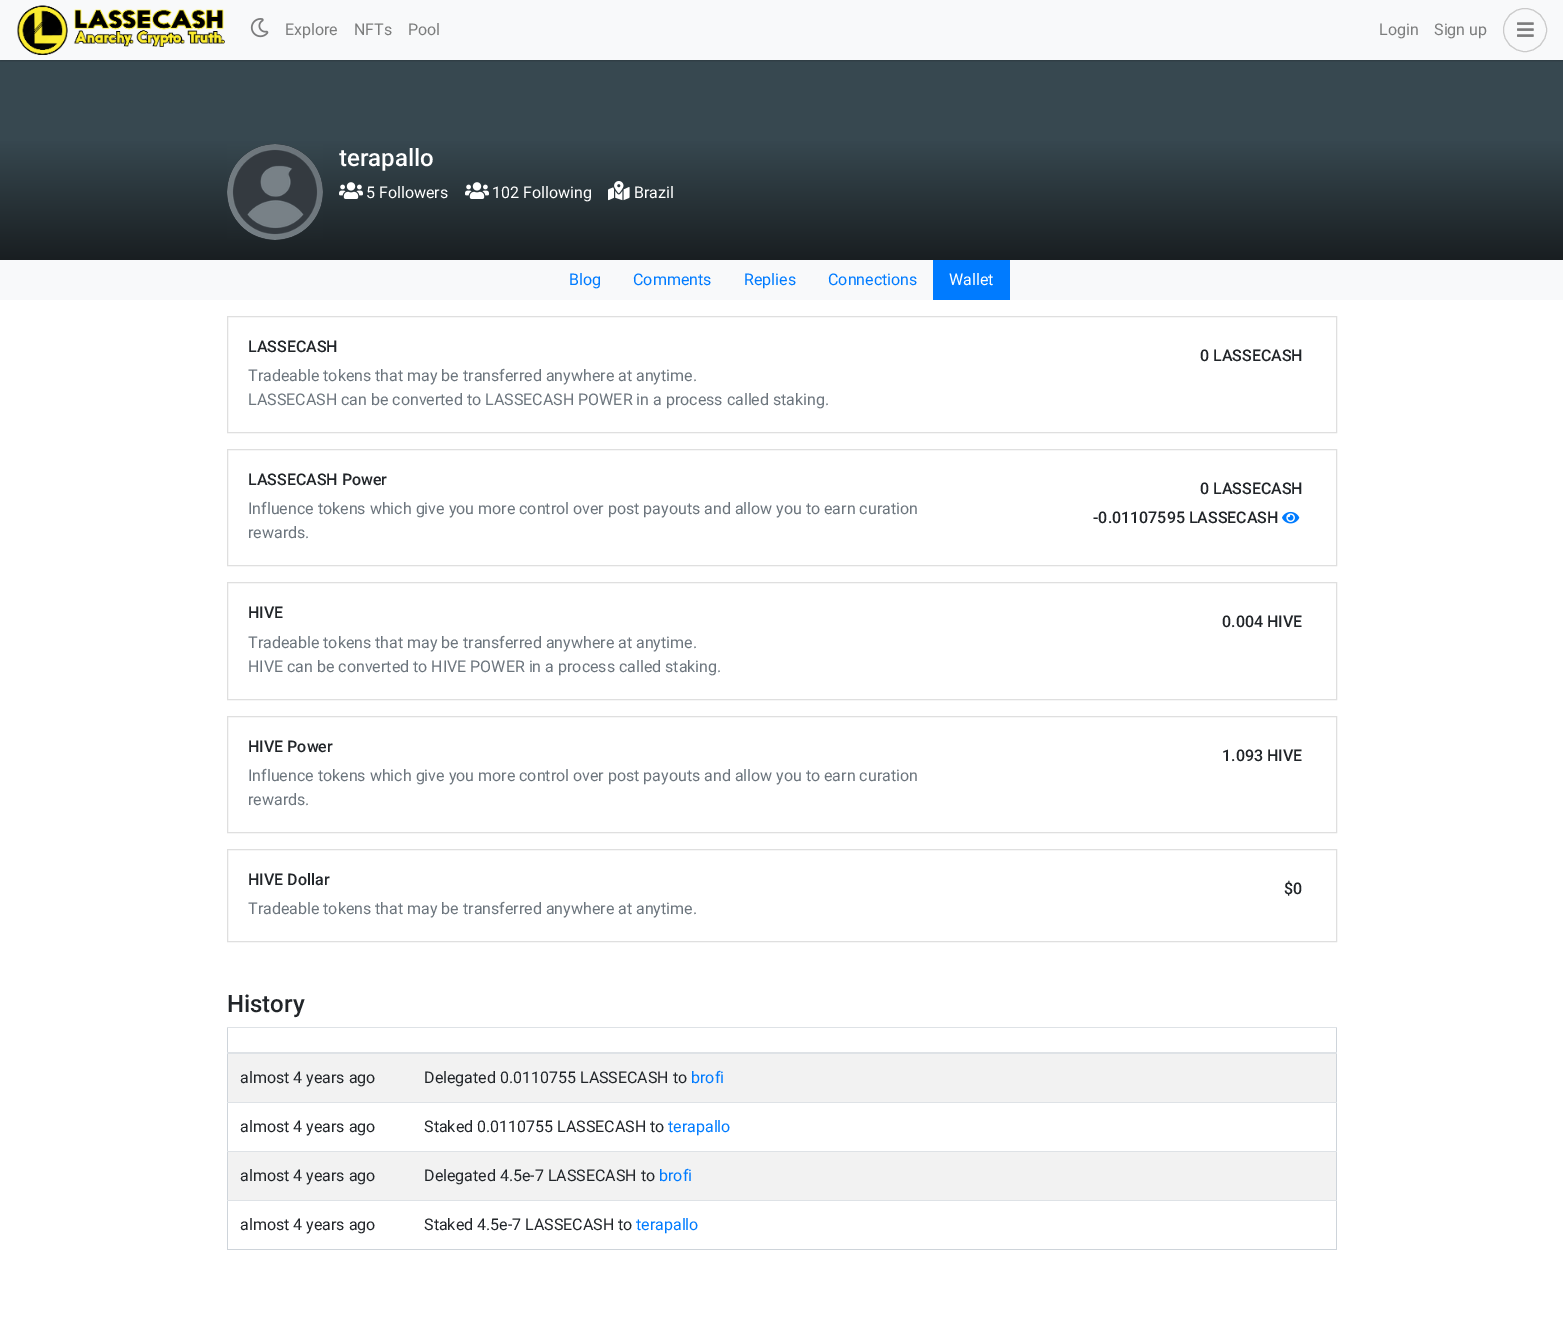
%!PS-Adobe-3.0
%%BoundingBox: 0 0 1563 1342
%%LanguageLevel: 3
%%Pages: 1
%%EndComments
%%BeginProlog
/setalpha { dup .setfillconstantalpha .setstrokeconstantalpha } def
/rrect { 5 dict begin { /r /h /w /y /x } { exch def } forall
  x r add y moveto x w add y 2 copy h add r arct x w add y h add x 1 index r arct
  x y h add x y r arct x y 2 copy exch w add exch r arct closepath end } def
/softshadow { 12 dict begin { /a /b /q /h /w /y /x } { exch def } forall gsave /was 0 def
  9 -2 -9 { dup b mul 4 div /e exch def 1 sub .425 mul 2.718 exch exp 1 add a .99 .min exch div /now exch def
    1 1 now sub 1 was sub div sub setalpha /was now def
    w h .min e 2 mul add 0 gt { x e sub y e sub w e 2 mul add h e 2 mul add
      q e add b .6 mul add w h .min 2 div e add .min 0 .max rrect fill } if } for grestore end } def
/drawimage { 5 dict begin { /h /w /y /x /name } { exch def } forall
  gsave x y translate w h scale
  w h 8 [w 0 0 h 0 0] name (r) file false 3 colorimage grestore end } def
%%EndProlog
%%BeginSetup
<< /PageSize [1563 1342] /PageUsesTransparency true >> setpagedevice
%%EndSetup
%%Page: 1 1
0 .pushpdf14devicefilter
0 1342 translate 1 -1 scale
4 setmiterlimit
1 setgray
0 0 1563 1342 rectfill
gsave newpath 0 60 moveto 1563 60 lineto 1563 260 lineto 0 260 lineto closepath clip newpath
<< /ShadingType 2 /ColorSpace /DeviceRGB /Coords [782 60 782 260] /Extend [true true] /Function << /FunctionType 3 /Domain [0 1] /Functions [<< /FunctionType 2 /Domain [0 1] /C0 [0.216 0.282 0.314] /C1 [0.216 0.282 0.314] /N 1 >> << /FunctionType 2 /Domain [0 1] /C0 [0.216 0.282 0.314] /C1 [0.098 0.118 0.129] /N 1 >>] /Bounds [0.4] /Encode [0 1 0 1] >> >> shfill grestore
0 setgray
0 1 1563 60 0 1 0.14 softshadow
0 1 1563 60 0 1.5 0.07 softshadow
0.973 0.976 0.98 setrgbcolor
0 0 1563 60 rectfill
(images/1.raw) 17 5 208 50 drawimage
(images/2.raw) 250 18 19 20 drawimage
0.792 setgray
newpath 1525 30 21.5 0 360 arc closepath stroke
(images/3.raw) 1517 22 17 15 drawimage
0.204 0.227 0.251 setrgbcolor
newpath 275 192 48 0 360 arc closepath fill
(images/4.raw) 227 144 96 96 drawimage
(images/5.raw) 339 182 24 17 drawimage
(images/5.raw) 465 182 24 17 drawimage
(images/6.raw) 608 181 22 20 drawimage
0.973 0.976 0.98 setrgbcolor
0 260 1563 40 rectfill
0 0.482 1 setrgbcolor
933 260 77 40 rectfill
0.875 setgray
227.5 316.5 1109 116 rectstroke
227.5 449.5 1109 116 rectstroke
(images/7.raw) 1282 511 18 13 drawimage
227.5 582.5 1109 117 rectstroke
227.5 716.5 1109 116 rectstroke
227.5 849.5 1109 92 rectstroke
0.808 0.831 0.855 setrgbcolor
1336 1027 1 223 rectfill
227 1249 1110 1 rectfill
227 1027 1 223 rectfill
0.871 0.886 0.902 setrgbcolor
227 1027 1110 1 rectfill
227 1052 1110 2 rectfill
0.949 setgray
228 1054 1108 48 rectfill
0.871 0.886 0.902 setrgbcolor
227 1102 1110 1 rectfill
0.949 setgray
228 1152 1108 48 rectfill
0.871 0.886 0.902 setrgbcolor
227 1151 1110 1 rectfill
227 1200 1110 1 rectfill
/Roboto-Regular [16 0 0 -16 0 0] selectfont
0.486 0.49 0.49 setrgbcolor
285 35 moveto (Explore) show
354 35 moveto (NFTs) show
408 35 moveto (Pool) show
1379 35 moveto (Login) show
1434 35 moveto (Sign up) show
/Roboto-Medium [24 0 0 -24 0 0] selectfont
1 setgray
339 166 moveto (terapallo) show
/Roboto-Regular [16 0 0 -16 0 0] selectfont
366 198 moveto (5 Followers) show
492 198 moveto (102 Following) show
634 198 moveto (Brazil) show
0 0.482 1 setrgbcolor
569 285 moveto (Blog) show
633 285 moveto (Comments) show
744 285 moveto (Replies) show
828 285 moveto (Connections) show
1 setgray
949 285 moveto (Wallet) show
/Roboto-Medium [16 0 0 -16 0 0] selectfont
0.129 0.145 0.161 setrgbcolor
248 352 moveto (LASSECASH) show
/Roboto-Regular [16 0 0 -16 0 0] selectfont
0.424 0.459 0.49 setrgbcolor
248 381 moveto (Tradeable tokens that may be transferred anywhere at anytime.) show
248 405 moveto (LASSECASH can be converted to LASSECASH POWER in a process called staking.) show
/Roboto-Medium [16 0 0 -16 0 0] selectfont
0.129 0.145 0.161 setrgbcolor
1200 361 moveto (0 LASSECASH) show
248 485 moveto (LASSECASH Power) show
/Roboto-Regular [16 0 0 -16 0 0] selectfont
0.424 0.459 0.49 setrgbcolor
248 514 moveto (Influence tokens which give you more control over post payouts and allow you to earn curation) show
248 538 moveto (rewards.) show
/Roboto-Medium [16 0 0 -16 0 0] selectfont
0.129 0.145 0.161 setrgbcolor
1200 494 moveto (0 LASSECASH) show
1093 523 moveto (-0.01107595 LASSECASH) show
248 618 moveto (HIVE) show
/Roboto-Regular [16 0 0 -16 0 0] selectfont
0.424 0.459 0.49 setrgbcolor
248 648 moveto (Tradeable tokens that may be transferred anywhere at anytime.) show
248 672 moveto (HIVE can be converted to HIVE POWER in a process called staking.) show
/Roboto-Medium [16 0 0 -16 0 0] selectfont
0.129 0.145 0.161 setrgbcolor
1222 627 moveto (0.004 HIVE) show
248 752 moveto (HIVE Power) show
/Roboto-Regular [16 0 0 -16 0 0] selectfont
0.424 0.459 0.49 setrgbcolor
248 781 moveto (Influence tokens which give you more control over post payouts and allow you to earn curation) show
248 805 moveto (rewards.) show
/Roboto-Medium [16 0 0 -16 0 0] selectfont
0.129 0.145 0.161 setrgbcolor
1222 761 moveto (1.093 HIVE) show
248 885 moveto (HIVE Dollar) show
/Roboto-Regular [16 0 0 -16 0 0] selectfont
0.424 0.459 0.49 setrgbcolor
248 914 moveto (Tradeable tokens that may be transferred anywhere at anytime.) show
/Roboto-Medium [16 0 0 -16 0 0] selectfont
0.129 0.145 0.161 setrgbcolor
1284 894 moveto ($0) show
/Roboto-Medium [24 0 0 -24 0 0] selectfont
227 1012 moveto (History) show
/Roboto-Regular [16 0 0 -16 0 0] selectfont
240 1083 moveto (almost 4 years ago) show
424 1083 moveto (Delegated 0.0110755 LASSECASH to) show
0 0.482 1 setrgbcolor
691 1083 moveto (brofi) show
0.129 0.145 0.161 setrgbcolor
240 1132 moveto (almost 4 years ago) show
424 1132 moveto (Staked 0.0110755 LASSECASH to) show
0 0.482 1 setrgbcolor
668 1132 moveto (terapallo) show
0.129 0.145 0.161 setrgbcolor
240 1181 moveto (almost 4 years ago) show
424 1181 moveto (Delegated 4.5e-7 LASSECASH to) show
0 0.482 1 setrgbcolor
659 1181 moveto (brofi) show
0.129 0.145 0.161 setrgbcolor
240 1230 moveto (almost 4 years ago) show
424 1230 moveto (Staked 4.5e-7 LASSECASH to) show
0 0.482 1 setrgbcolor
636 1230 moveto (terapallo) show
.poppdf14devicefilter showpage
%%EOF
